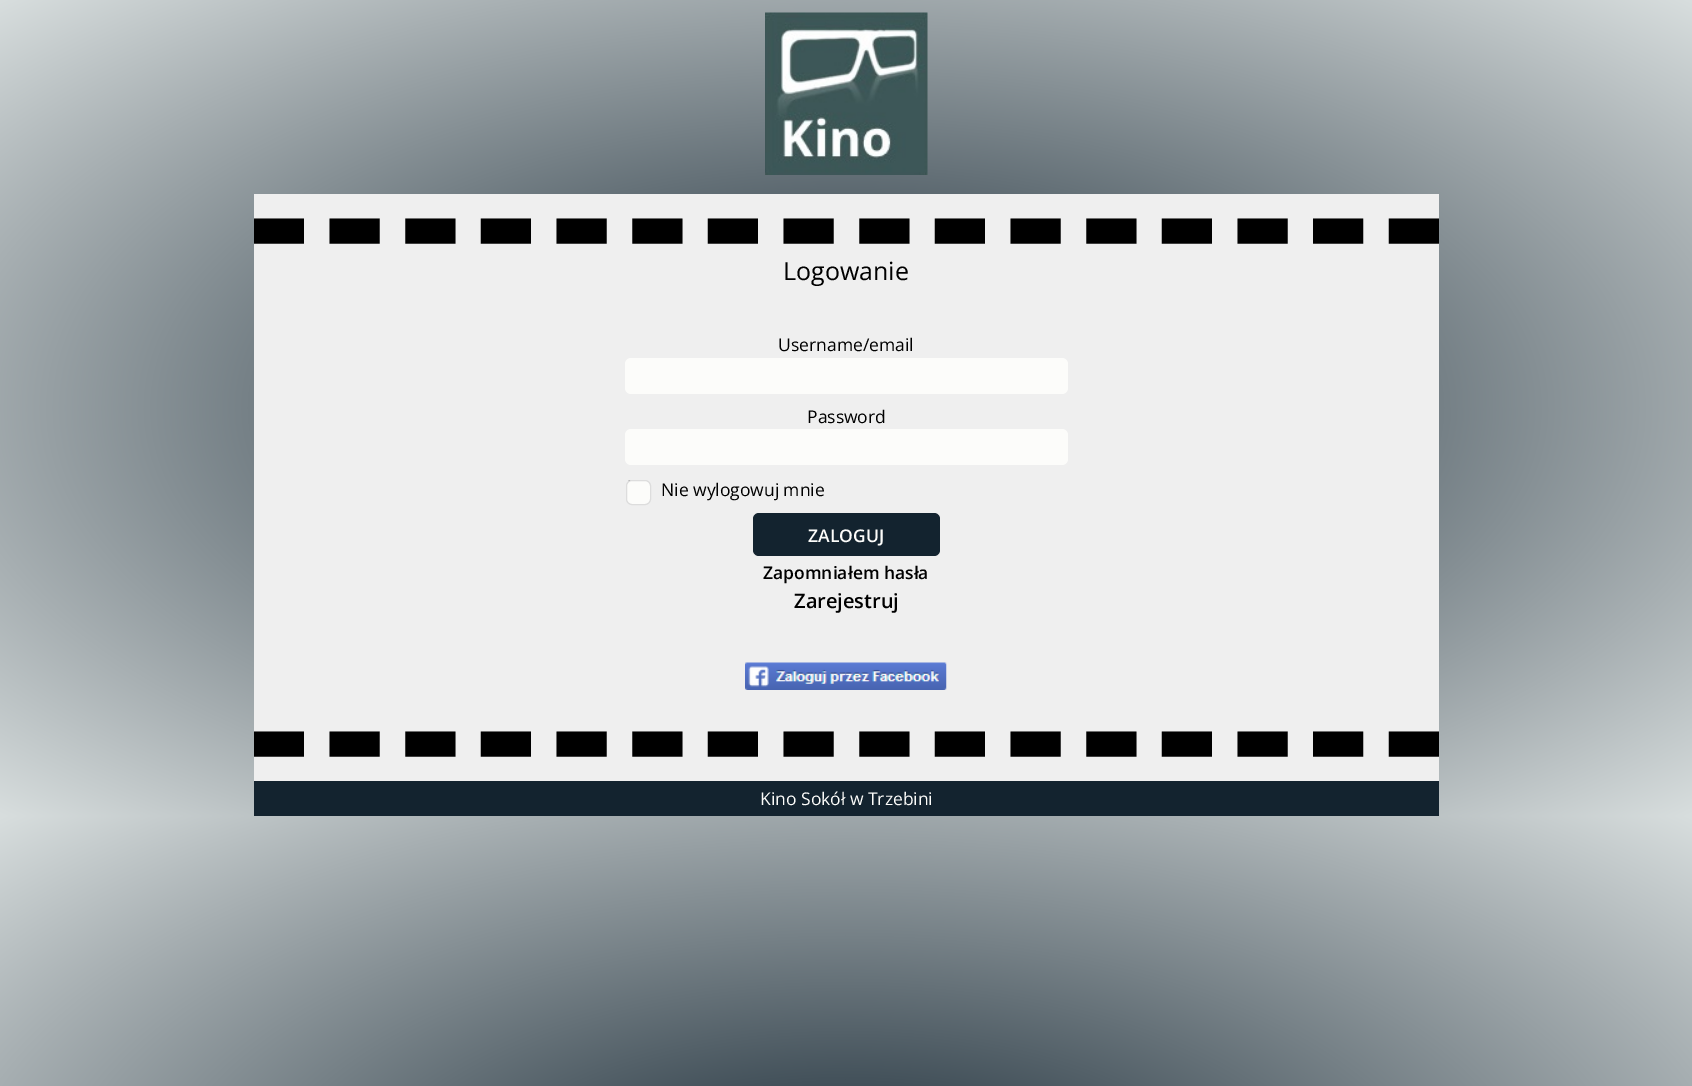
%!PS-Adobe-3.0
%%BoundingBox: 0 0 1692 1086
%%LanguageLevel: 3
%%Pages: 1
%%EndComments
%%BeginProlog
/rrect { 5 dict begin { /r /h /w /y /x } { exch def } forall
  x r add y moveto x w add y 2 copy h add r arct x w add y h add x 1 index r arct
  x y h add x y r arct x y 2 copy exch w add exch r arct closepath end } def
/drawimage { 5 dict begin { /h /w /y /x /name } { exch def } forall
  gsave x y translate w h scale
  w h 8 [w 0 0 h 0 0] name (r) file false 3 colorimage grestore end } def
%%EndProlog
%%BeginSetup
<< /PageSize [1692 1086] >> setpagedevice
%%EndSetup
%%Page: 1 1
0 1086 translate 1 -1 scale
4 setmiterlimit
1 setgray
0 0 1692 1086 rectfill
gsave newpath 0 0 moveto 1692 0 lineto 1692 816 lineto 0 816 lineto closepath clip newpath 846 408 translate 1197 577 scale
<< /ShadingType 3 /ColorSpace /DeviceRGB /Coords [0 0 0 0 0 1] /Extend [true true] /Function << /FunctionType 2 /Domain [0 1] /C0 [0.075 0.137 0.184] /C1 [0.847 0.871 0.871] /N 1 >> >> shfill grestore
gsave newpath 0 816 moveto 1692 816 lineto 1692 1086 lineto 0 1086 lineto closepath clip newpath 846 1224 translate 1197 577 scale
<< /ShadingType 3 /ColorSpace /DeviceRGB /Coords [0 0 0 0 0 1] /Extend [true true] /Function << /FunctionType 2 /Domain [0 1] /C0 [0.075 0.137 0.184] /C1 [0.847 0.871 0.871] /N 1 >> >> shfill grestore
(images/1.raw) 765 12 163 163 drawimage
0.937 setgray
254 194 1185 587 rectfill
0 setgray
25 setlinewidth
[50 25.66] 0 setdash
newpath 254 231 moveto 1439 231 lineto stroke
newpath 254 744 moveto 1439 744 lineto stroke
0.988 0.988 0.98 setrgbcolor
625 358 443 36 6 rrect fill
625 429 443 36 6 rrect fill
0.463 setgray
1 setlinewidth
[] 0 setdash
628.5 480.5 15 15 2 rrect stroke
0.988 0.988 0.98 setrgbcolor
626.5 480.5 24 24 5.5 rrect gsave fill grestore
0.867 setgray
stroke
0.075 0.137 0.184 setrgbcolor
753 513 187 43 6 rrect fill
(images/2.raw) 745 662 202 28 drawimage
254 781 1185 35 rectfill
/OpenSans-Regular [25 0 0 -25 0 0] selectfont
0 setgray
783 280 moveto (Logowanie) show
/OpenSans-Regular [17.5 0 0 -17.5 0 0] selectfont
778 351 moveto (Username/email) show
807 423 moveto (Password) show
661 496 moveto (Nie wylogowuj mnie) show
/OpenSans-SemiBold [17.5 0 0 -17.5 0 0] selectfont
0.988 0.988 0.98 setrgbcolor
808 542 moveto (ZALOGUJ) show
0 setgray
763 579 moveto (Zapomniałem hasła) show
/OpenSans-SemiBold [20 0 0 -20 0 0] selectfont
794 608 moveto (Zarejestruj) show
/OpenSans-Regular [17.5 0 0 -17.5 0 0] selectfont
0.988 0.988 0.98 setrgbcolor
760 805 moveto (Kino Sokół w Trzebini) show
showpage
%%EOF
